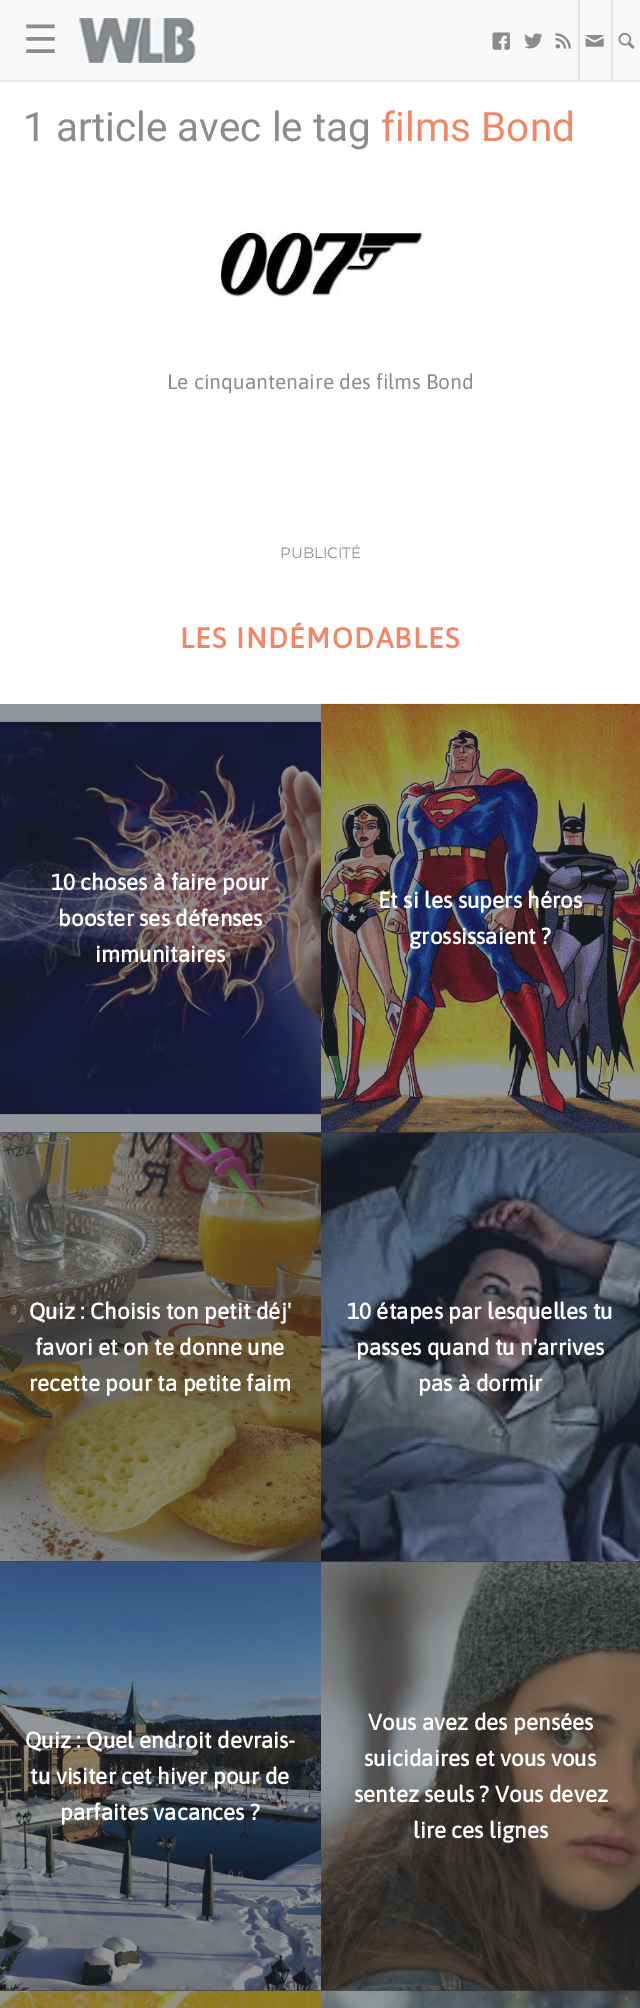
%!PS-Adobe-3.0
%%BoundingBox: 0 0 640 2008
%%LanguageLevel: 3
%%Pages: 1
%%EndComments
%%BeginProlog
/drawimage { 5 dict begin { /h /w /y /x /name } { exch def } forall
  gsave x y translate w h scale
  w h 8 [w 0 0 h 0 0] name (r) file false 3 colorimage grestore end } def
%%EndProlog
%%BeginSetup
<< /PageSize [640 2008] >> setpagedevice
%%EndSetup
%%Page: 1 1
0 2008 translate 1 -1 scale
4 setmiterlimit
1 setgray
0 0 640 2008 rectfill
0.976 setgray
0 0 640 80 rectfill
0.918 setgray
0 80 640 2 rectfill
(images/1.raw) 79 18 117 45 drawimage
(images/2.raw) 492 32 18 18 drawimage
(images/3.raw) 524 33 19 16 drawimage
(images/4.raw) 555 33 16 16 drawimage
0.898 setgray
578 0 2 80 rectfill
(images/5.raw) 585 35 19 12 drawimage
611 0 2 80 rectfill
(images/6.raw) 618 32 17 17 drawimage
(images/7.raw) 218 229 208 68 drawimage
0.161 0.188 0.212 setrgbcolor
0 704 640 429 rectfill
(images/8.raw) 0 704 321 429 drawimage
(images/9.raw) 321 703 319 430 drawimage
0 1133 640 429 rectfill
(images/10.raw) 0 1132 321 430 drawimage
(images/11.raw) 321 1132 319 430 drawimage
0 1562 640 429 rectfill
(images/12.raw) 0 1561 321 430 drawimage
(images/13.raw) 321 1561 319 430 drawimage
0 1991 640 17 rectfill
(images/14.raw) 0 1990 321 18 drawimage
(images/15.raw) 321 1990 319 18 drawimage
/DejaVuSans-Regular [39 0 0 -39 0 0] selectfont
0.537 0.553 0.565 setrgbcolor
23 53 moveto (☰) show
/Roboto-Regular [40.5 0 0 -40.5 0 0] selectfont
23 141 moveto (1 article avec le tag) show
0.945 0.529 0.408 setrgbcolor
381 141 moveto (films Bond) show
/Asap-Regular [21 0 0 -21 0 0] selectfont
0.537 0.553 0.565 setrgbcolor
167 389 moveto (Le cinquantenaire des films Bond) show
/Montserrat-Thin [15 0 0 -15 0 0] selectfont
280 558 moveto (PUBLICITÉ) show
/Asap-Bold [28.5 0 0 -28.5 0 0] selectfont
0.945 0.529 0.408 setrgbcolor
180 648 moveto 1.5 0 (LES INDÉMODABLES) ashow
/Asap-Bold [22.5 0 0 -22.5 0 0] selectfont
1 setgray
51 890 moveto (10 choses à faire pour) show
58 926 moveto (booster ses défenses) show
95 962 moveto (immunitaires) show
378 908 moveto (Et si les supers héros) show
409 944 moveto (grossissaient ?) show
29 1319 moveto (Quiz : Choisis ton petit déj') show
35 1355 moveto (favori et on te donne une) show
29 1391 moveto (recette pour ta petite faim) show
347 1319 moveto (10 étapes par lesquelles tu) show
356 1355 moveto (passes quand tu n'arrives) show
418 1391 moveto (pas à dormir) show
25 1748 moveto (Quiz : Quel endroit devrais-) show
30 1784 moveto (tu visiter cet hiver pour de) show
60 1820 moveto (parfaites vacances ?) show
368 1730 moveto (Vous avez des pensées) show
364 1766 moveto (suicidaires et vous vous) show
354 1802 moveto (sentez seuls ? Vous devez) show
413 1838 moveto (lire ces lignes) show
showpage
%%EOF
